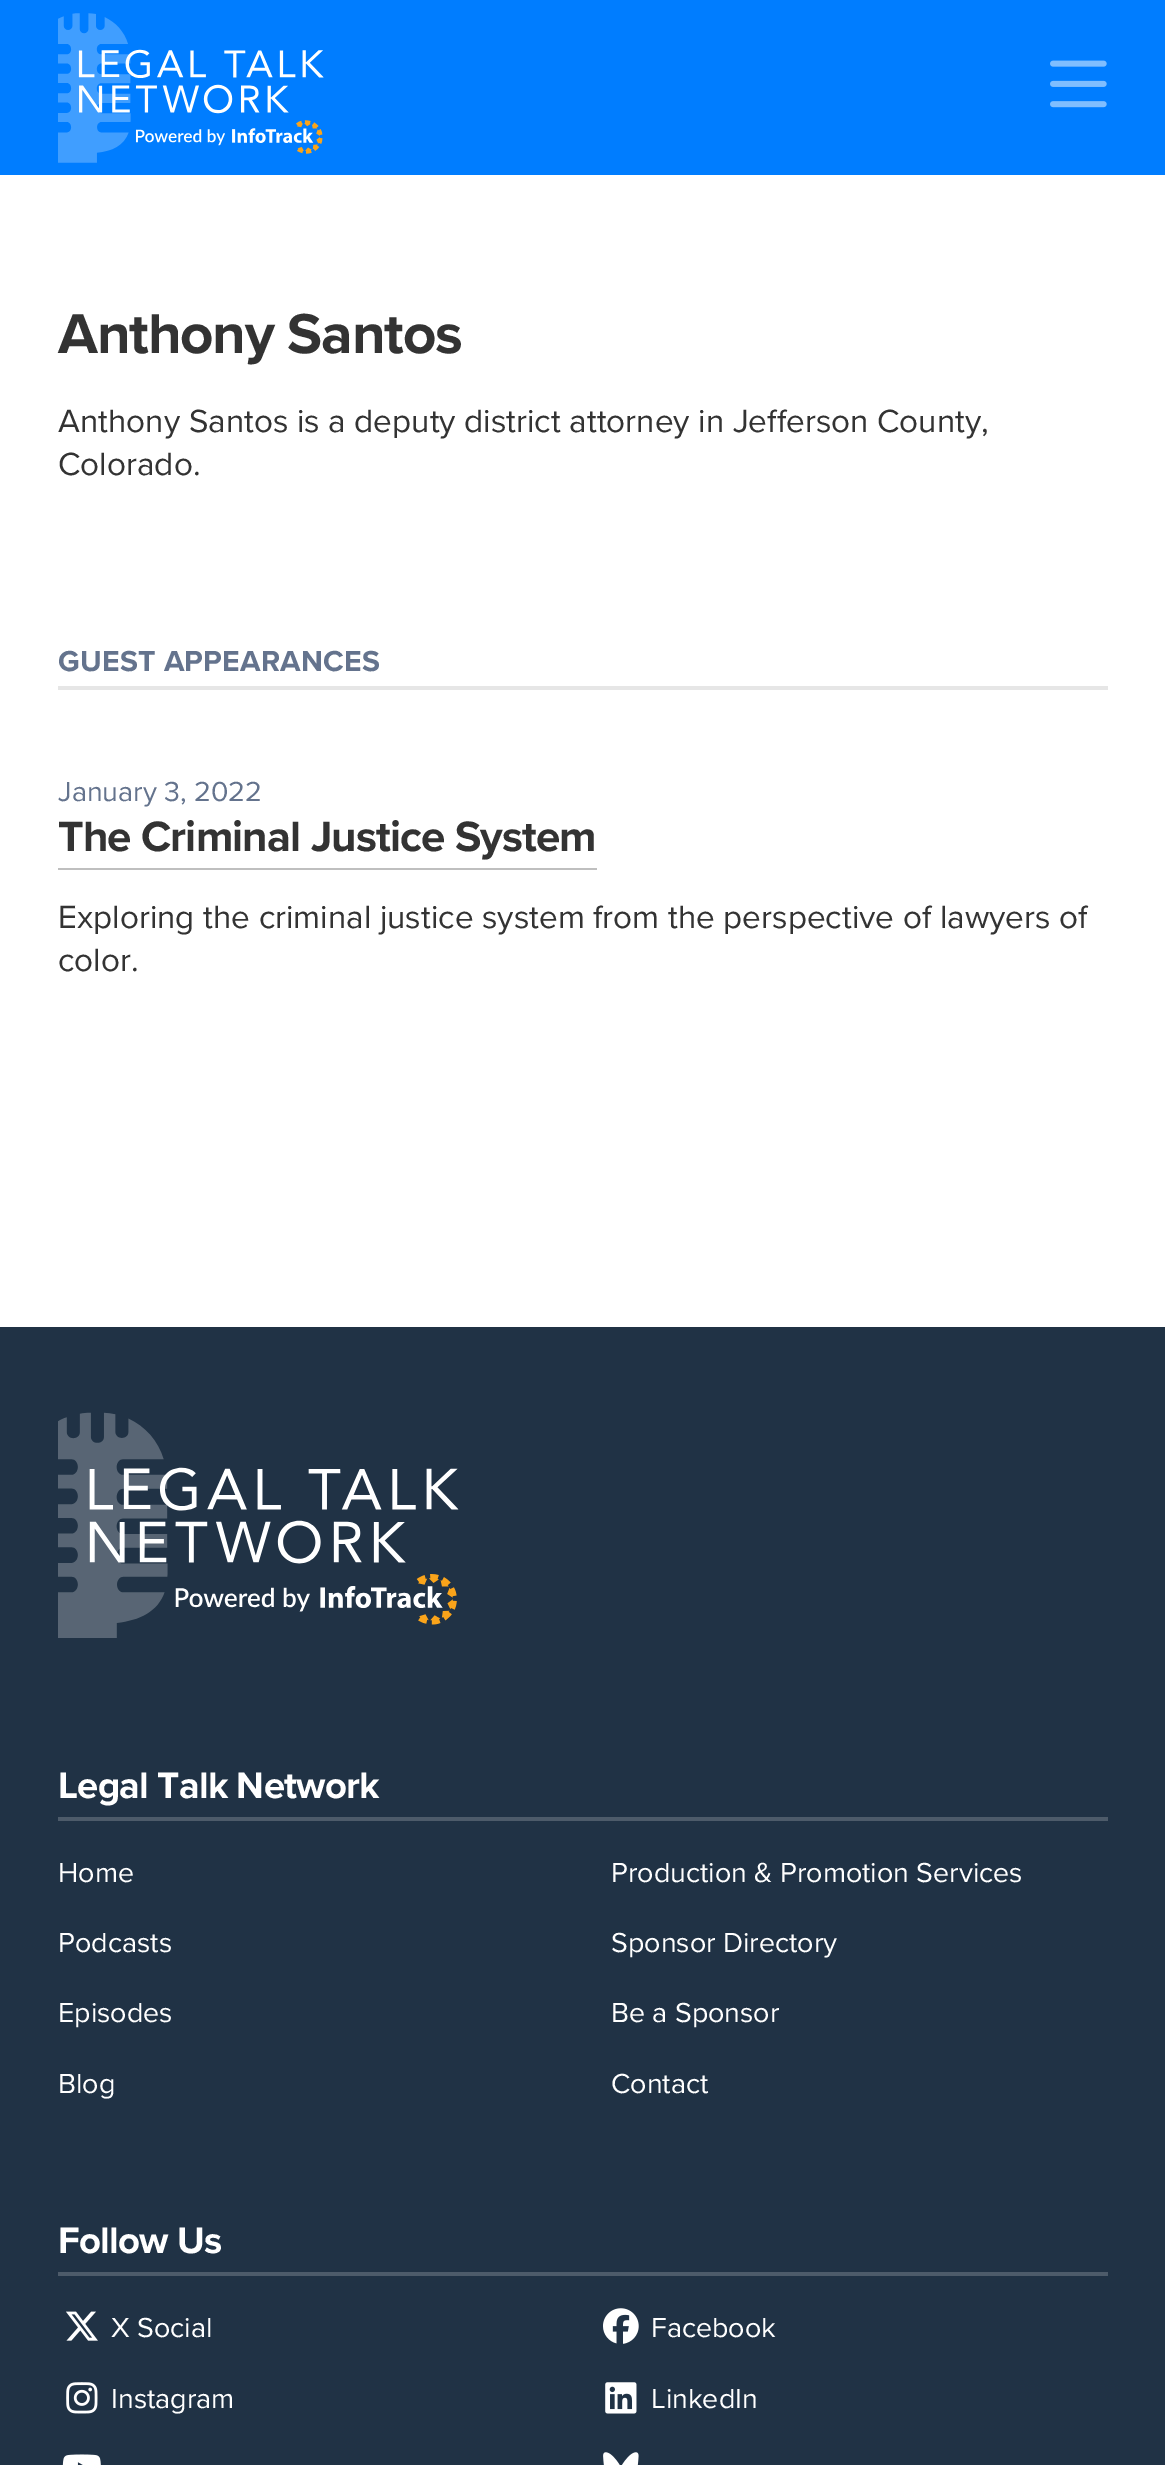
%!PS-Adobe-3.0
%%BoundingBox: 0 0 1165 2465
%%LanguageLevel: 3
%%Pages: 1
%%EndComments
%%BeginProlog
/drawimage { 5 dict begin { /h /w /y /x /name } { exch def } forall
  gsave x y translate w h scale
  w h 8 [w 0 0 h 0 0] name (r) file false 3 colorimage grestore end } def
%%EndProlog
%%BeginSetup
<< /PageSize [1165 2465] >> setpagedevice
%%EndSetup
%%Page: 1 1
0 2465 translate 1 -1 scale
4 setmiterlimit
1 setgray
0 0 1165 2465 rectfill
0 0.49 1 setrgbcolor
0 0 1165 175 rectfill
(images/1.raw) 58 13 266 150 drawimage
(images/2.raw) 1050 60 57 48 drawimage
0.902 setgray
58 686 1050 4 rectfill
0.749 setgray
58 868 539 2 rectfill
0.125 0.196 0.271 setrgbcolor
0 1327 1165 1138 rectfill
(images/3.raw) 58 1412 401 226 drawimage
0.302 0.357 0.416 setrgbcolor
58 1817 1050 4 rectfill
58 2272 1050 4 rectfill
(images/4.raw) 66 2311 32 30 drawimage
(images/5.raw) 603 2308 36 36 drawimage
(images/6.raw) 66 2382 32 32 drawimage
(images/7.raw) 605 2382 32 32 drawimage
(images/8.raw) 62 2454 39 11 drawimage
(images/9.raw) 603 2452 36 13 drawimage
/ProximaNova-Bold [58.25 0 0 -58.25 0 0] selectfont
0.2 setgray
58 353 moveto -1.2 0 (Anthony Santos) ashow
/ProximaNova-Regular [33.25 0 0 -33.25 0 0] selectfont
58 432 moveto (Anthony Santos is a deputy district attorney in Jefferson County,) show
58 475 moveto (Colorado.) show
/ProximaNova-Bold [30 0 0 -30 0 0] selectfont
0.392 0.451 0.553 setrgbcolor
58 671 moveto 0.25 0 (GUEST APPEARANCES) ashow
/ProximaNova-Regular [28.6 0 0 -28.6 0 0] selectfont
58 801 moveto (January 3, 2022) show
/ProximaNova-Bold [44 0 0 -44 0 0] selectfont
0.2 setgray
58 851 moveto -0.9 0 (The Criminal Justice System) ashow
/ProximaNova-Regular [33.25 0 0 -33.25 0 0] selectfont
58 928 moveto (Exploring the criminal justice system from the perspective of lawyers of) show
58 971 moveto (color.) show
/ProximaNova-Bold [38.25 0 0 -38.25 0 0] selectfont
1 setgray
58 1798 moveto -0.75 0 (Legal Talk Network) ashow
/ProximaNova-Regular [28.6 0 0 -28.6 0 0] selectfont
58 1882 moveto (Home) show
611 1882 moveto (Production & Promotion Services) show
58 1952 moveto (Podcasts) show
611 1952 moveto (Sponsor Directory) show
58 2022 moveto (Episodes) show
611 2022 moveto (Be a Sponsor) show
58 2093 moveto (Blog) show
611 2093 moveto (Contact) show
/ProximaNova-Bold [38.25 0 0 -38.25 0 0] selectfont
58 2253 moveto -0.75 0 (Follow Us) ashow
/ProximaNova-Regular [28.6 0 0 -28.6 0 0] selectfont
111 2337 moveto (X Social) show
651 2337 moveto (Facebook) show
111 2408 moveto (Instagram) show
651 2408 moveto (LinkedIn) show
showpage
%%EOF
